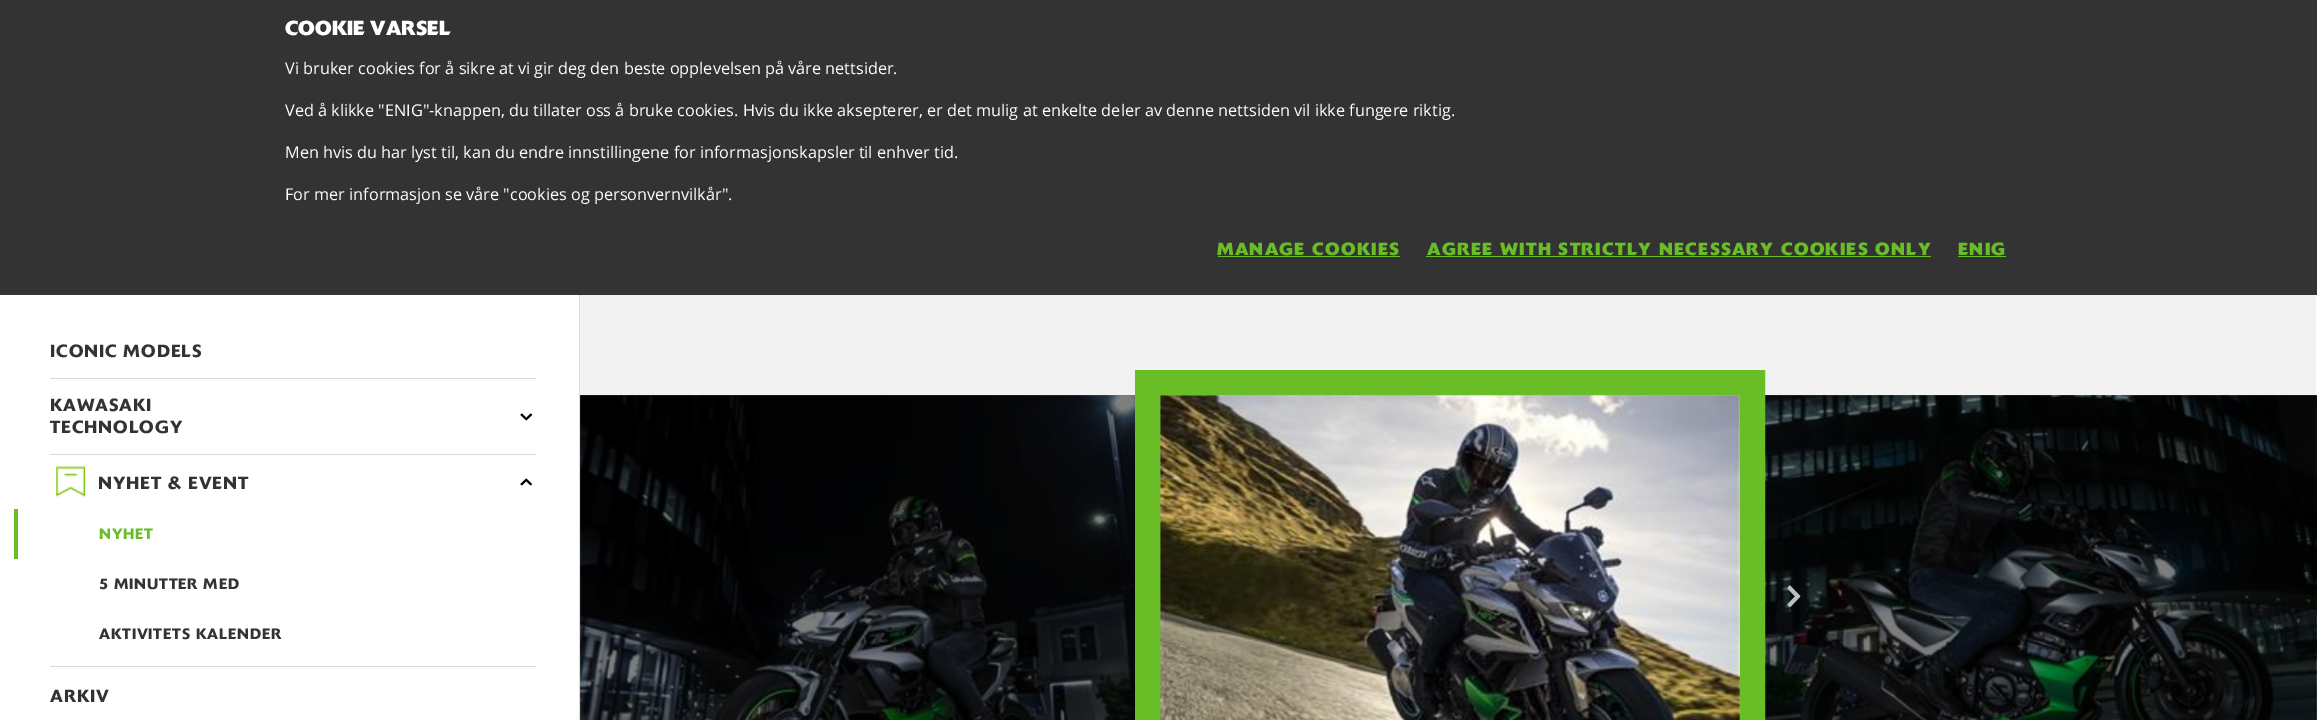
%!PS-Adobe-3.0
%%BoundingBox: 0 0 2317 720
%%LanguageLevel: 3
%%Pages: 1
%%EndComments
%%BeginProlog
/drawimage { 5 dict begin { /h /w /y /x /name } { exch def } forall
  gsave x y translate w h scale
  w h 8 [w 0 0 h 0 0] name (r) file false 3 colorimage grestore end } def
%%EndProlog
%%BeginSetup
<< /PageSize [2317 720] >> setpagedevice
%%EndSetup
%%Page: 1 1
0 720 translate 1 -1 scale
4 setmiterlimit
1 setgray
0 0 2317 720 rectfill
0.2 setgray
0 0 2317 295 rectfill
0.412 0.745 0.157 setrgbcolor
1218 256 182 1 rectfill
1426 256 505 1 rectfill
1958 256 48 1 rectfill
0.859 setgray
50 378 486 1 rectfill
50 454 486 1 rectfill
(images/1.raw) 520 413 13 8 drawimage
50 666 486 1 rectfill
(images/2.raw) 56 466 30 31 drawimage
(images/3.raw) 520 478 12 8 drawimage
0.412 0.745 0.157 setrgbcolor
14 509 4 50 rectfill
0.949 setgray
580 295 1736 425 rectfill
0.475 setgray
580 395 555 325 rectfill
0.859 setgray
579 295 1 425 rectfill
(images/4.raw) 580 395 581 325 drawimage
(images/6.raw) 1739 395 578 325 drawimage
(images/5.raw) 1160 395 580 325 drawimage
0.412 0.745 0.157 setrgbcolor
25 setlinewidth
1147.5 382.5 605 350 rectstroke
(images/7.raw) 1787 585 14 22 drawimage
/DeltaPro-Bold [20 0 0 -20 0 0] selectfont
1 setgray
285 35 moveto (COOKIE VARSEL) show
/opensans-Regular [16.25 0 0 -16.25 0 0] selectfont
285 74 moveto (Vi bruker cookies for å sikre at vi gir deg den beste opplevelsen på våre nettsider.) show
285 116 moveto (Ved å klikke "ENIG"-knappen, du tillater oss å bruke cookies. Hvis du ikke aksepterer, er det mulig at enkelte deler av denne nettsiden vil ikke fungere riktig.) show
285 158 moveto (Men hvis du har lyst til, kan du endre innstillingene for informasjonskapsler til enhver tid.) show
285 200 moveto (For mer informasjon se våre "cookies og personvernvilkår".) show
/DeltaPro-Bold [17.5 0 0 -17.5 0 0] selectfont
0.412 0.745 0.157 setrgbcolor
1217 255 moveto 1.25 0 (MANAGE COOKIES) ashow
1427 255 moveto 1.25 0 (AGREE WITH STRICTLY NECESSARY COOKIES ONLY) ashow
1958 255 moveto 1.25 0 (ENIG) ashow
/DeltaPro-Medium [17.5 0 0 -17.5 0 0] selectfont
0.2 setgray
50 357 moveto 0.9 0 (ICONIC MODELS) ashow
50 411 moveto 0.9 0 (KAWASAKI) ashow
50 433 moveto 0.9 0 (TECHNOLOGY) ashow
98 489 moveto 0.9 0 (NYHET & EVENT) ashow
/DeltaPro-Medium [15 0 0 -15 0 0] selectfont
0.412 0.745 0.157 setrgbcolor
99 539 moveto 0.75 0 (NYHET) ashow
0.2 setgray
99 589 moveto 0.75 0 (5 MINUTTER MED) ashow
99 639 moveto 0.75 0 (AKTIVITETS KALENDER) ashow
/DeltaPro-Medium [17.5 0 0 -17.5 0 0] selectfont
50 702 moveto 0.9 0 (ARKIV) ashow
showpage
%%EOF
